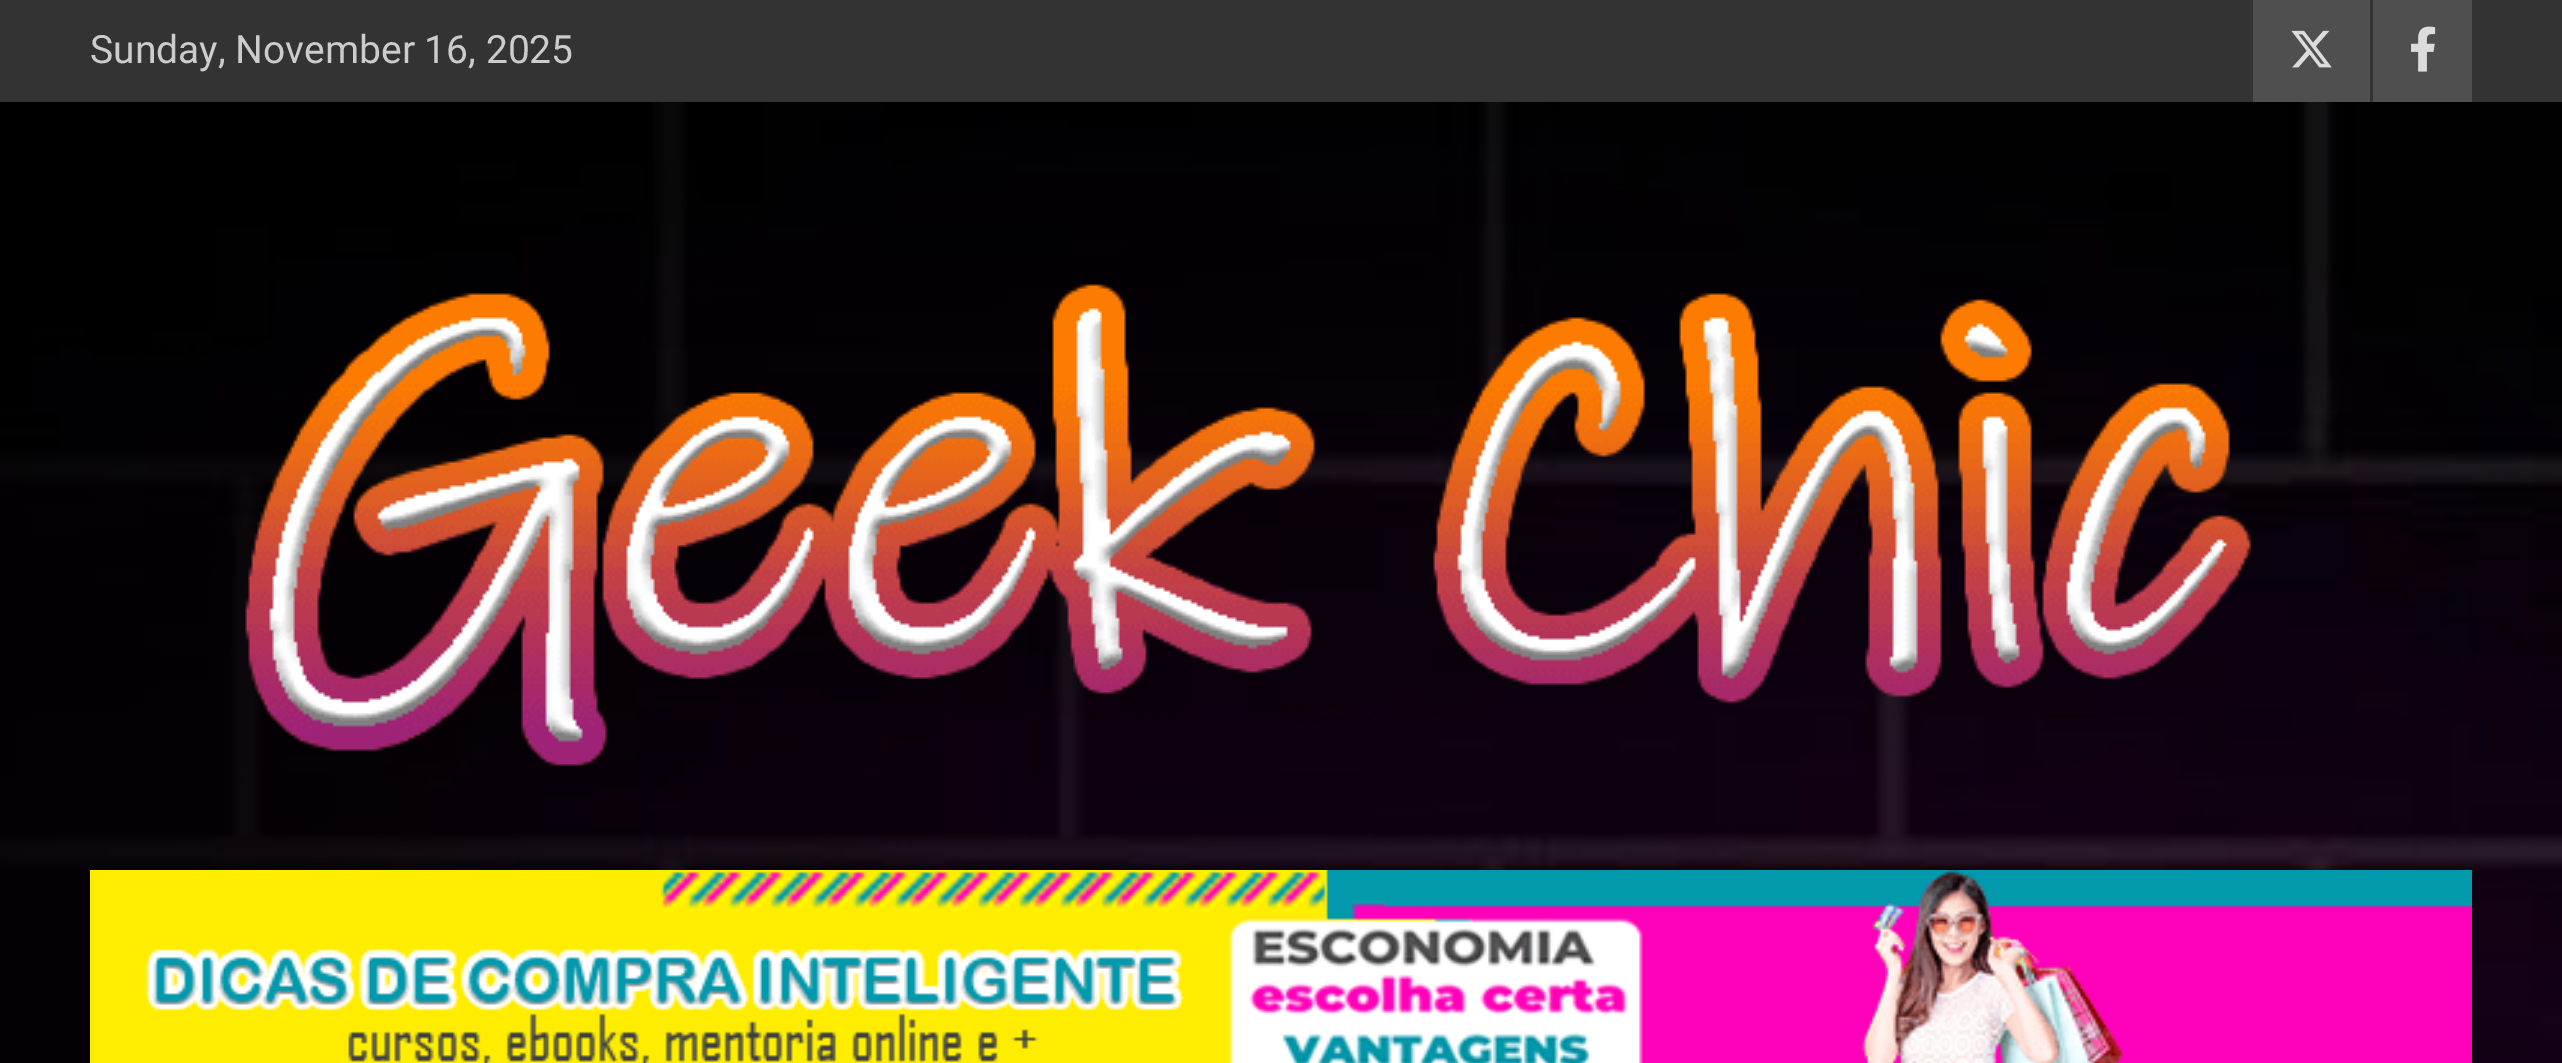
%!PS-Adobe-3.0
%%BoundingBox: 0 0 2562 1063
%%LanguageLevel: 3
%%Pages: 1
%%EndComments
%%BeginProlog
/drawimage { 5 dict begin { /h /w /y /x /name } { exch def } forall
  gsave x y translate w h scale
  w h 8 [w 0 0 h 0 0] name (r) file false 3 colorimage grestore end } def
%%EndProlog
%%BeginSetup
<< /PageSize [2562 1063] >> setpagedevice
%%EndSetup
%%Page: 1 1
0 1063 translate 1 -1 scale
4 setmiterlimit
0.2 setgray
0 0 2562 1063 rectfill
0.31 setgray
2253 0 117 102 rectfill
(images/1.raw) 2291 30 41 38 drawimage
2373 0 99 102 rectfill
(images/2.raw) 2411 26 25 46 drawimage
(images/3.raw) 0 102 2562 961 drawimage
(images/4.raw) 245 284 2006 482 drawimage
(images/5.raw) 90 870 2382 193 drawimage
/Roboto-Regular [39 0 0 -39 0 0] selectfont
0.8 setgray
90 63 moveto (Sunday, November 16, 2025) show
showpage
%%EOF
